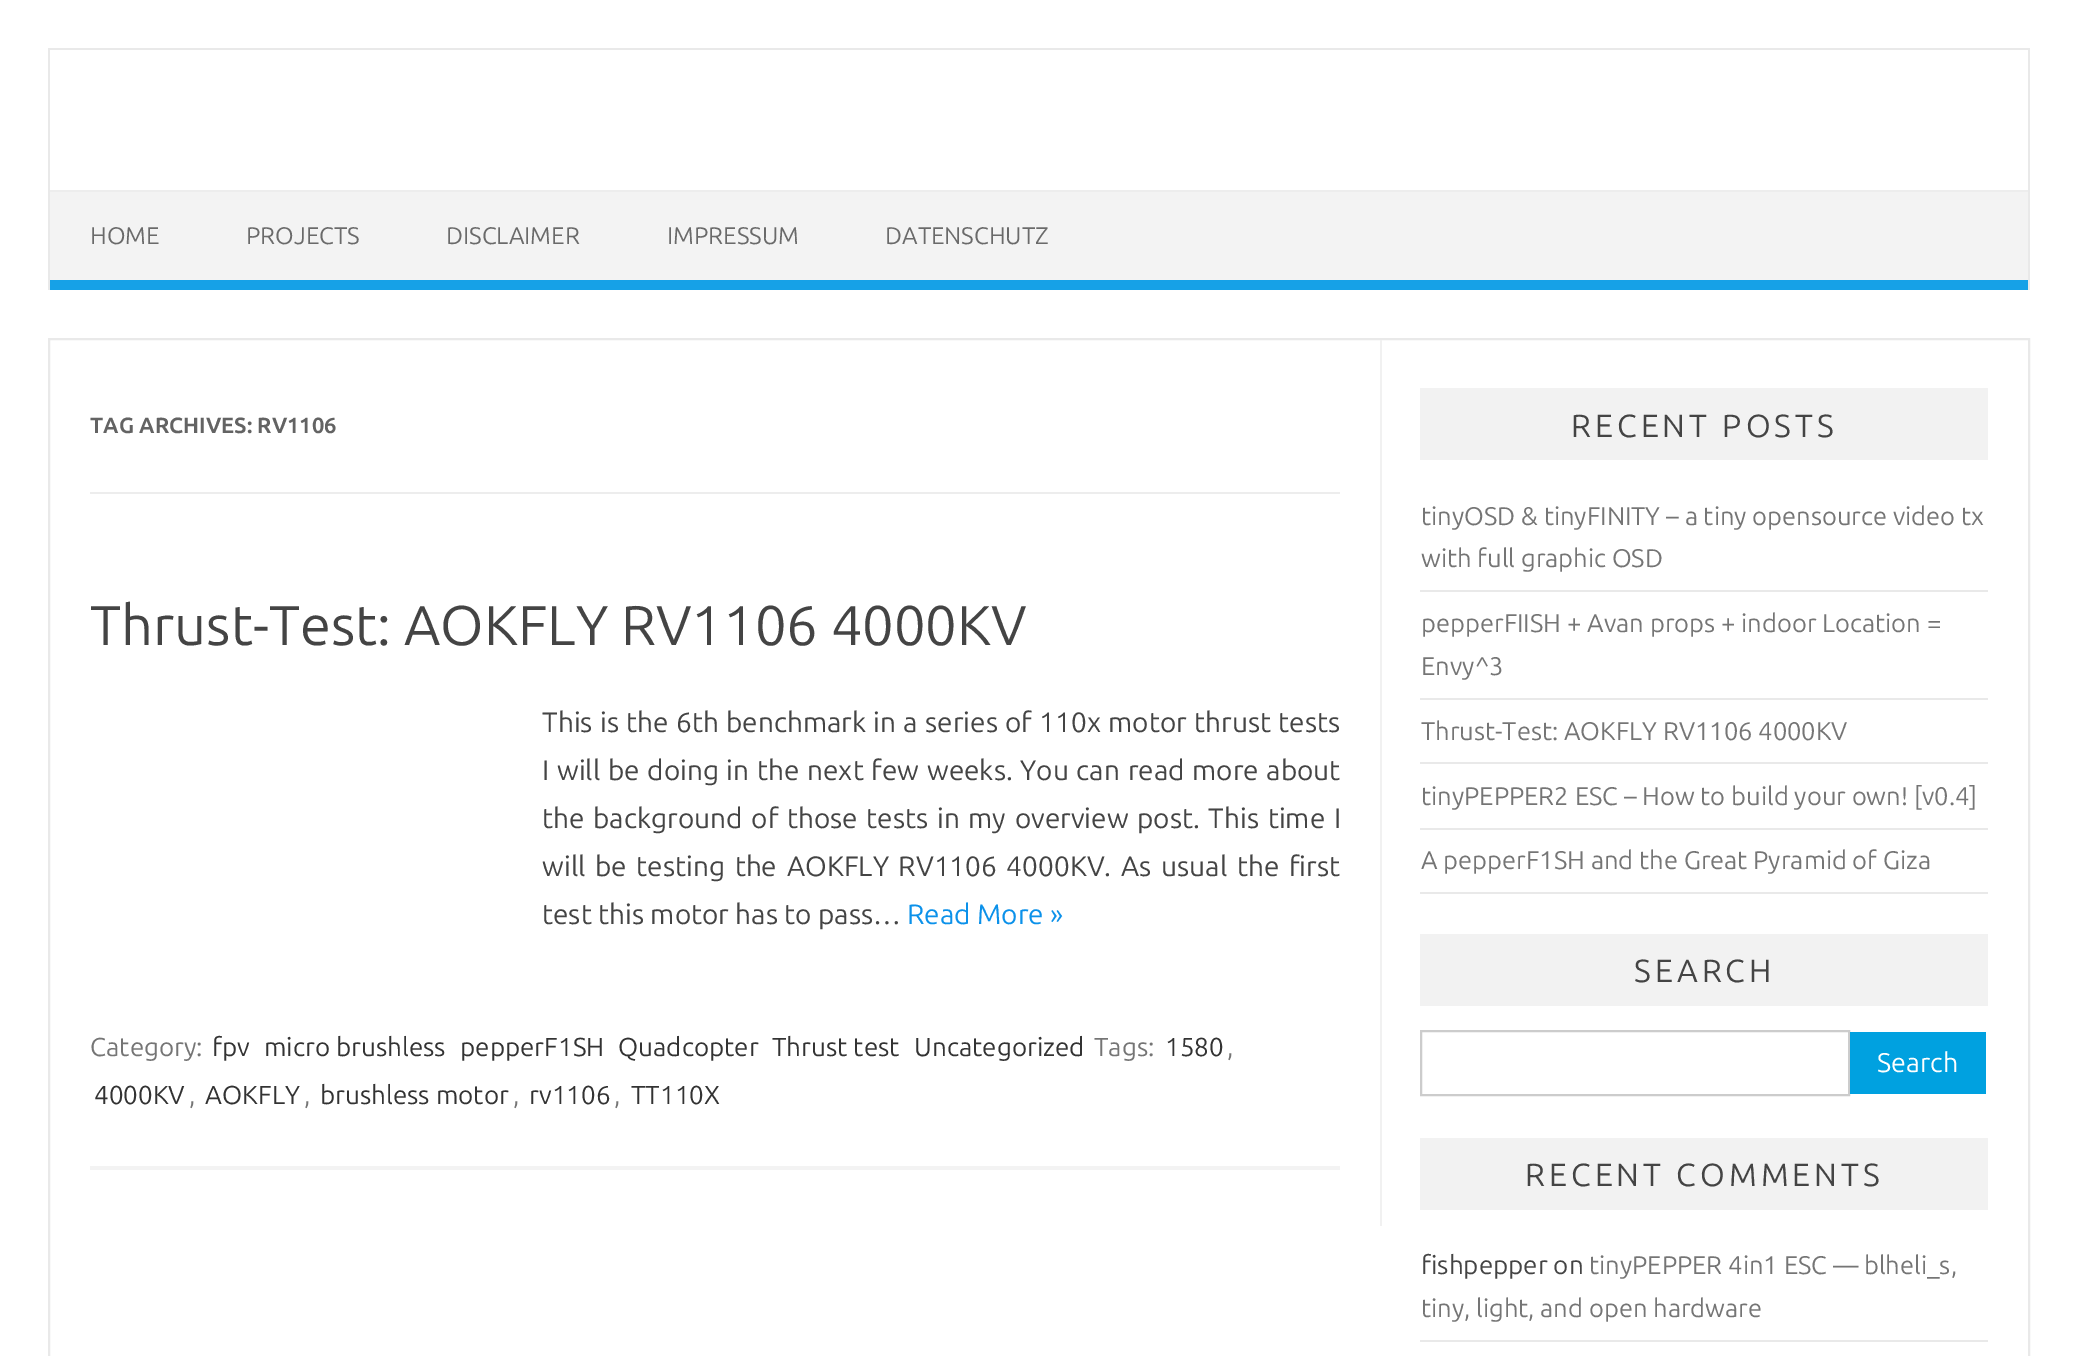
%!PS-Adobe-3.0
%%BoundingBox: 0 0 2078 1356
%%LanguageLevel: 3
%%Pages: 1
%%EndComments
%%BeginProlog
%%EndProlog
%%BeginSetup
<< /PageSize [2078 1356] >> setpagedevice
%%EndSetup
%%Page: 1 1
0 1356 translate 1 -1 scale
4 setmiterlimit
1 setgray
0 0 2078 1356 rectfill
0.914 setgray
48 48 1982 2 rectfill
2028 48 2 242 rectfill
48 48 2 242 rectfill
0.953 setgray
50 192 1978 88 rectfill
0.929 setgray
50 190 1978 2 rectfill
0.086 0.631 0.906 setrgbcolor
50 280 1978 10 rectfill
0.914 setgray
2 setlinewidth
49 339 1980 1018 rectstroke
0.945 setgray
1380 340 2 886 rectfill
0.929 setgray
90 492 1250 2 rectfill
0.953 setgray
90 1166 1250 4 rectfill
0.949 setgray
1420 388 568 72 rectfill
0.914 setgray
1420 590 568 2 rectfill
1420 698 568 2 rectfill
1420 762 568 2 rectfill
1420 828 568 2 rectfill
1420 892 568 2 rectfill
0.949 setgray
1420 934 568 72 rectfill
0.8 setgray
1421 1031 428 64 rectstroke
0 0.631 0.878 setrgbcolor
1850 1032 136 62 rectfill
0.949 setgray
1420 1138 568 72 rectfill
0.914 setgray
1420 1340 568 2 rectfill
/Ubuntu-Regular [24 0 0 -24 0 0] selectfont
0.416 setgray
90 244 moveto (HOME) show
246 244 moveto (PROJECTS) show
446 244 moveto (DISCLAIMER) show
667 244 moveto (IMPRESSUM) show
885 244 moveto (DATENSCHUTZ) show
/Ubuntu-Bold [22 0 0 -22 0 0] selectfont
0.388 setgray
90 433 moveto (TAG ARCHIVES: RV1106) show
/Ubuntu-Regular [56 0 0 -56 0 0] selectfont
0.267 setgray
90 645 moveto (Thrust-Test: AOKFLY RV1106 4000KV) show
/Ubuntu-Regular [28 0 0 -28 0 0] selectfont
542 732 moveto 0.9 0 32 (This is the 6th benchmark in a series of 110x motor thrust tests) widthshow
542 780 moveto 1.25 0 32 (I will be doing in the next few weeks. You can read more about) widthshow
542 828 moveto 2.25 0 32 (the background of those tests in my overview post. This time I) widthshow
542 876 moveto 3.25 0 32 (will be testing the AOKFLY RV1106 4000KV. As usual the first) widthshow
542 924 moveto (test this motor has to pass…) show
0.043 0.569 0.918 setrgbcolor
907 924 moveto (Read More ») show
/Ubuntu-Regular [26 0 0 -26 0 0] selectfont
0.459 setgray
90 1056 moveto (Category:) show
0.2 setgray
212 1056 moveto (fpv) show
264 1056 moveto (micro brushless) show
460 1056 moveto (pepperF1SH) show
618 1056 moveto (Quadcopter) show
772 1056 moveto (Thrust test) show
914 1056 moveto (Uncategorized) show
0.459 setgray
1094 1056 moveto (Tags:) show
0.2 setgray
1165 1056 moveto (1580) show
0.459 setgray
1227 1056 moveto (,) show
0.2 setgray
94 1104 moveto (4000KV) show
0.459 setgray
189 1104 moveto (,) show
0.2 setgray
205 1104 moveto (AOKFLY) show
0.459 setgray
304 1104 moveto (,) show
0.2 setgray
320 1104 moveto (brushless motor) show
0.459 setgray
513 1104 moveto (,) show
0.2 setgray
529 1104 moveto (rv1106) show
0.459 setgray
614 1104 moveto (,) show
0.2 setgray
631 1104 moveto (TT110X) show
/Ubuntu-Regular [32 0 0 -32 0 0] selectfont
0.267 setgray
1571 437 moveto 4 0 (RECENT POSTS) ashow
/Ubuntu-Regular [25.5 0 0 -25.5 0 0] selectfont
0.459 setgray
1421 525 moveto (tinyOSD & tinyFINITY – a tiny opensource video tx) show
1421 567 moveto (with full graphic OSD) show
1421 632 moveto (pepperFIISH + Avan props + indoor Location =) show
1421 675 moveto (Envy^3) show
1421 740 moveto (Thrust-Test: AOKFLY RV1106 4000KV) show
1421 805 moveto (tinyPEPPER2 ESC – How to build your own! [v0.4]) show
1421 869 moveto (A pepperF1SH and the Great Pyramid of Giza) show
/Ubuntu-Regular [32 0 0 -32 0 0] selectfont
0.267 setgray
1634 982 moveto 4 0 (SEARCH) ashow
/Ubuntu-Regular [27 0 0 -27 0 0] selectfont
1 setgray
1877 1072 moveto (Search) show
/Ubuntu-Regular [32 0 0 -32 0 0] selectfont
0.267 setgray
1525 1186 moveto 4 0 (RECENT COMMENTS) ashow
/Ubuntu-Regular [26 0 0 -26 0 0] selectfont
1421 1274 moveto (fishpepper on) show
/Ubuntu-Regular [25.5 0 0 -25.5 0 0] selectfont
0.459 setgray
1589 1274 moveto (tinyPEPPER 4in1 ESC — blheli_s,) show
1421 1317 moveto (tiny, light, and open hardware) show
showpage
%%EOF
